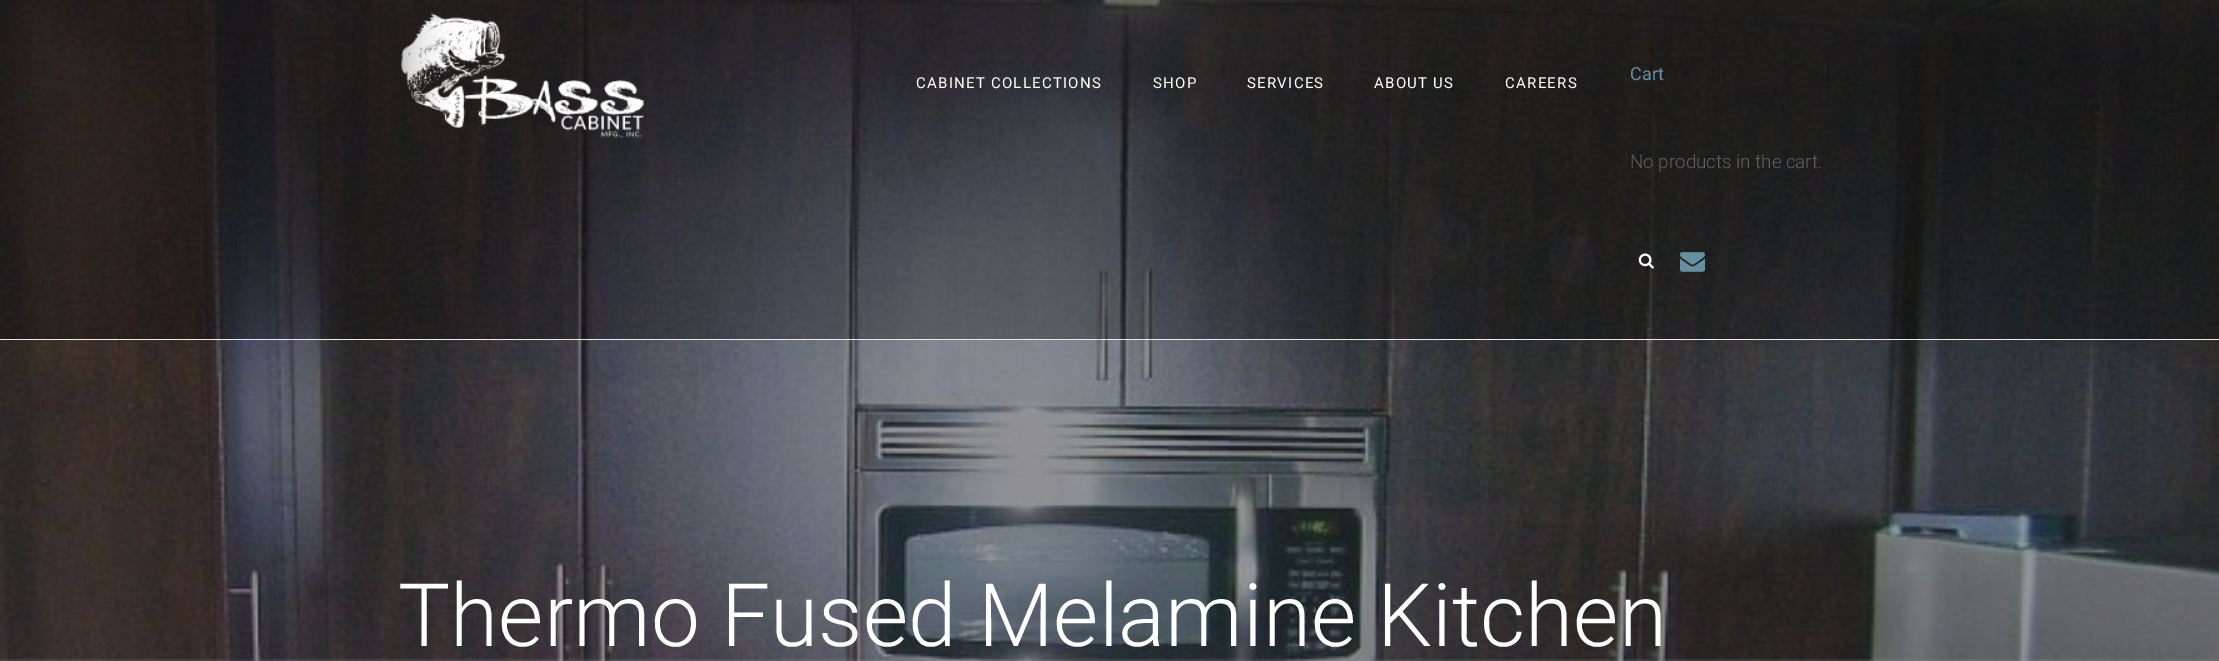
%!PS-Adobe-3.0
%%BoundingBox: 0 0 2219 661
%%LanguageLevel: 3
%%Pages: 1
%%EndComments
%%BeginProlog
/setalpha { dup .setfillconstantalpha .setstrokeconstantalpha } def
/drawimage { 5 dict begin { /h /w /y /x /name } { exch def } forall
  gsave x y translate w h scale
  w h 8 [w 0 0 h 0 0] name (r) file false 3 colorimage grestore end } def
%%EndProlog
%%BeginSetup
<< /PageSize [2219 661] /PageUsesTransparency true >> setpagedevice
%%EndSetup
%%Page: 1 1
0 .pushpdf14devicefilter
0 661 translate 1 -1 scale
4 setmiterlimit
1 setgray
0 0 2219 661 rectfill
(images/4.raw) 0 0 2219 661 drawimage
0.91 0.91 0.925 setrgbcolor
0 339 2219 1 rectfill
0.3 setalpha
0 setgray
0 0 2219 339 rectfill
1 setalpha
(images/1.raw) 401 13 243 125 drawimage
(images/2.raw) 1638 253 16 16 drawimage
(images/3.raw) 1680 252 25 20 drawimage
/Roboto-Regular [15 0 0 -15 0 0] selectfont
1 setgray
916 88 moveto 1.25 0 (CABINET COLLECTIONS) ashow
1153 88 moveto 1.25 0 (SHOP) ashow
1247 88 moveto 1.25 0 (SERVICES) ashow
1374 88 moveto 1.25 0 (ABOUT US) ashow
1505 88 moveto 1.25 0 (CAREERS) ashow
/Roboto-Regular [18 0 0 -18 0 0] selectfont
0.396 0.565 0.624 setrgbcolor
1630 80 moveto (Cart) show
/Roboto-Light [18.75 0 0 -18.75 0 0] selectfont
0.376 setgray
1630 168 moveto (No products in the cart.) show
/Roboto-Light [87.5 0 0 -87.5 0 0] selectfont
1 setgray
398 646 moveto (Thermo Fused Melamine Kitchen) show
.poppdf14devicefilter showpage
%%EOF
